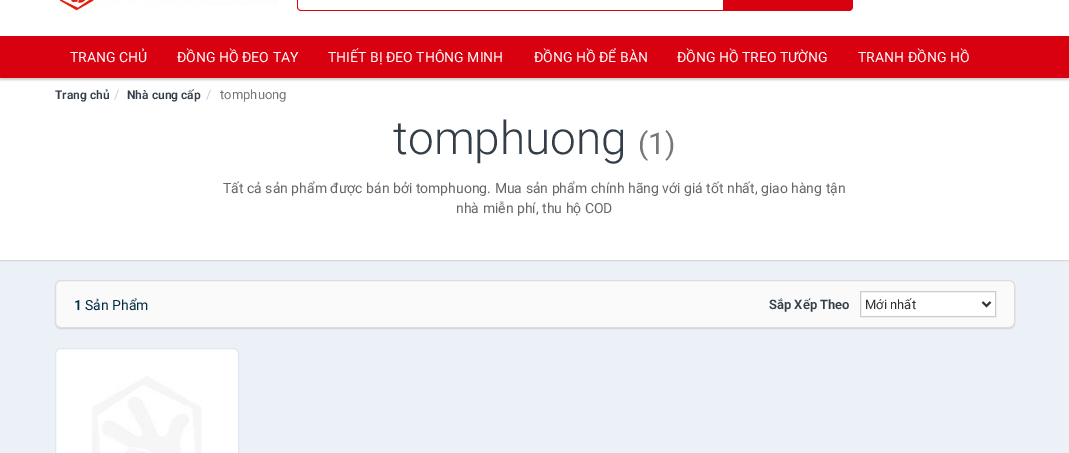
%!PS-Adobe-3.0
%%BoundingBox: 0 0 1069 453
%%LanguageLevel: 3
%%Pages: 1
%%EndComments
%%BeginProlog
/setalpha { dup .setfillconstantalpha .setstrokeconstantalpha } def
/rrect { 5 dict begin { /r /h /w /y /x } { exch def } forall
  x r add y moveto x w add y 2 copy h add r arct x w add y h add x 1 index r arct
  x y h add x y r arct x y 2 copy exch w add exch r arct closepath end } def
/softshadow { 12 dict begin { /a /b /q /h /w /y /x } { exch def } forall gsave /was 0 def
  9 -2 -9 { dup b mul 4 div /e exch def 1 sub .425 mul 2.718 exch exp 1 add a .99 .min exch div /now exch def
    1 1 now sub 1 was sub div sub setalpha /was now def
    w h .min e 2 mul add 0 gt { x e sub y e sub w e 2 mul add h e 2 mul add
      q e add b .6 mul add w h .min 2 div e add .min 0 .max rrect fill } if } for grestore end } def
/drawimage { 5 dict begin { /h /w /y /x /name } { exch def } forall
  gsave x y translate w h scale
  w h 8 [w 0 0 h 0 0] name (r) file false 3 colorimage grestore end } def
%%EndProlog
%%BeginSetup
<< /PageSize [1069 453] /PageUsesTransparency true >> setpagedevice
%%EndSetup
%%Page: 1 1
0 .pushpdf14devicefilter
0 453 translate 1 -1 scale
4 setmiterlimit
1 setgray
0 0 1069 453 rectfill
(images/1.raw) 55 0 223 14 drawimage
0.851 0 0.059 setrgbcolor
newpath 301 -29 moveto 724 -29 lineto 724 11 lineto 301 11 lineto 299 11 297 9 297 7 curveto 297 -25 lineto 297 -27 299 -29 301 -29 curveto closepath 301 -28 moveto 724 -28 lineto 724 10 lineto 301 10 lineto 299 10 298 9 298 7 curveto 298 -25 lineto 298 -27 299 -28 301 -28 curveto closepath eofill
newpath 723 -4 moveto 849 -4 lineto 851 -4 853 -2 853 0 curveto 853 7 lineto 853 9 851 11 849 11 curveto 723 11 lineto closepath fill
0 setgray
0 38 1069 42 0 1 0.2 softshadow
0.851 0 0.059 setrgbcolor
0 36 1069 42 rectfill
0.925 0.945 0.969 setrgbcolor
0 260 1069 193 rectfill
0.706 setgray
0 114 1069 147 0 0.5 0.5 softshadow
1 setgray
0 113 1069 147 rectfill
0.706 setgray
55 281 960 48 6 0.5 0.5 softshadow
0.98 setgray
55.5 280.5 959 47 5.5 rrect gsave fill grestore
0.867 setgray
stroke
1 setgray
newpath 860.5 291.5 moveto 995.5 291.5 lineto 995.5 316.5 lineto 860.5 316.5 lineto closepath gsave fill grestore
0.8 setgray
stroke
0.2 setgray
2 setlinewidth
newpath 982.5 302 moveto 986.5 306 lineto 990.5 302 lineto stroke
1 setgray
55.5 348.5 183 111 5.5 rrect gsave fill grestore
0.875 0.906 0.937 setrgbcolor
1 setlinewidth
stroke
(images/2.raw) 92 376 110 77 drawimage
/Roboto-Regular [14 0 0 -14 0 0] selectfont
1 setgray
70 62 moveto (TRANG CHỦ) show
177 62 moveto (ĐỒNG HỒ ĐEO TAY) show
328 62 moveto (THIẾT BỊ ĐEO THÔNG MINH) show
534 62 moveto (ĐỒNG HỒ ĐỂ BÀN) show
677 62 moveto (ĐỒNG HỒ TREO TƯỜNG) show
858 62 moveto (TRANH ĐỒNG HỒ) show
/Roboto-SemiBold [12 0 0 -12 0 0] selectfont
0.2 0.243 0.282 setrgbcolor
55 99 moveto (Trang chủ) show
/Roboto-Regular [13 0 0 -13 0 0] selectfont
0.8 setgray
114 99 moveto (/) show
/Roboto-SemiBold [12 0 0 -12 0 0] selectfont
0.2 0.243 0.282 setrgbcolor
127 99 moveto (Nhà cung cấp) show
/Roboto-Regular [13 0 0 -13 0 0] selectfont
0.8 setgray
206 99 moveto (/) show
0.467 setgray
220 99 moveto (tomphuong) show
/Roboto-Light [46 0 0 -46 0 0] selectfont
0.2 0.243 0.282 setrgbcolor
393 154 moveto (tomphuong) show
/Roboto-Regular [30 0 0 -30 0 0] selectfont
0.467 setgray
638 154 moveto (\(1\)) show
/Roboto-Regular [14 0 0 -14 0 0] selectfont
0.4 setgray
223 193 moveto (Tất cả sản phẩm được bán bởi tomphuong. Mua sản phẩm chính hãng với giá tốt nhất, giao hàng tận) show
456 213 moveto (nhà miễn phí, thu hộ COD) show
/Roboto-SemiBold [14 0 0 -14 0 0] selectfont
0.004 0.176 0.255 setrgbcolor
74 310 moveto (1) show
/Roboto-Regular [14 0 0 -14 0 0] selectfont
85 310 moveto (Sản Phẩm) show
/Roboto-SemiBold [13 0 0 -13 0 0] selectfont
0.2 0.243 0.282 setrgbcolor
769 309 moveto (Sắp Xếp Theo) show
/Roboto-Regular [13 0 0 -13 0 0] selectfont
0.2 setgray
865 309 moveto (Mới nhất) show
.poppdf14devicefilter showpage
%%EOF
